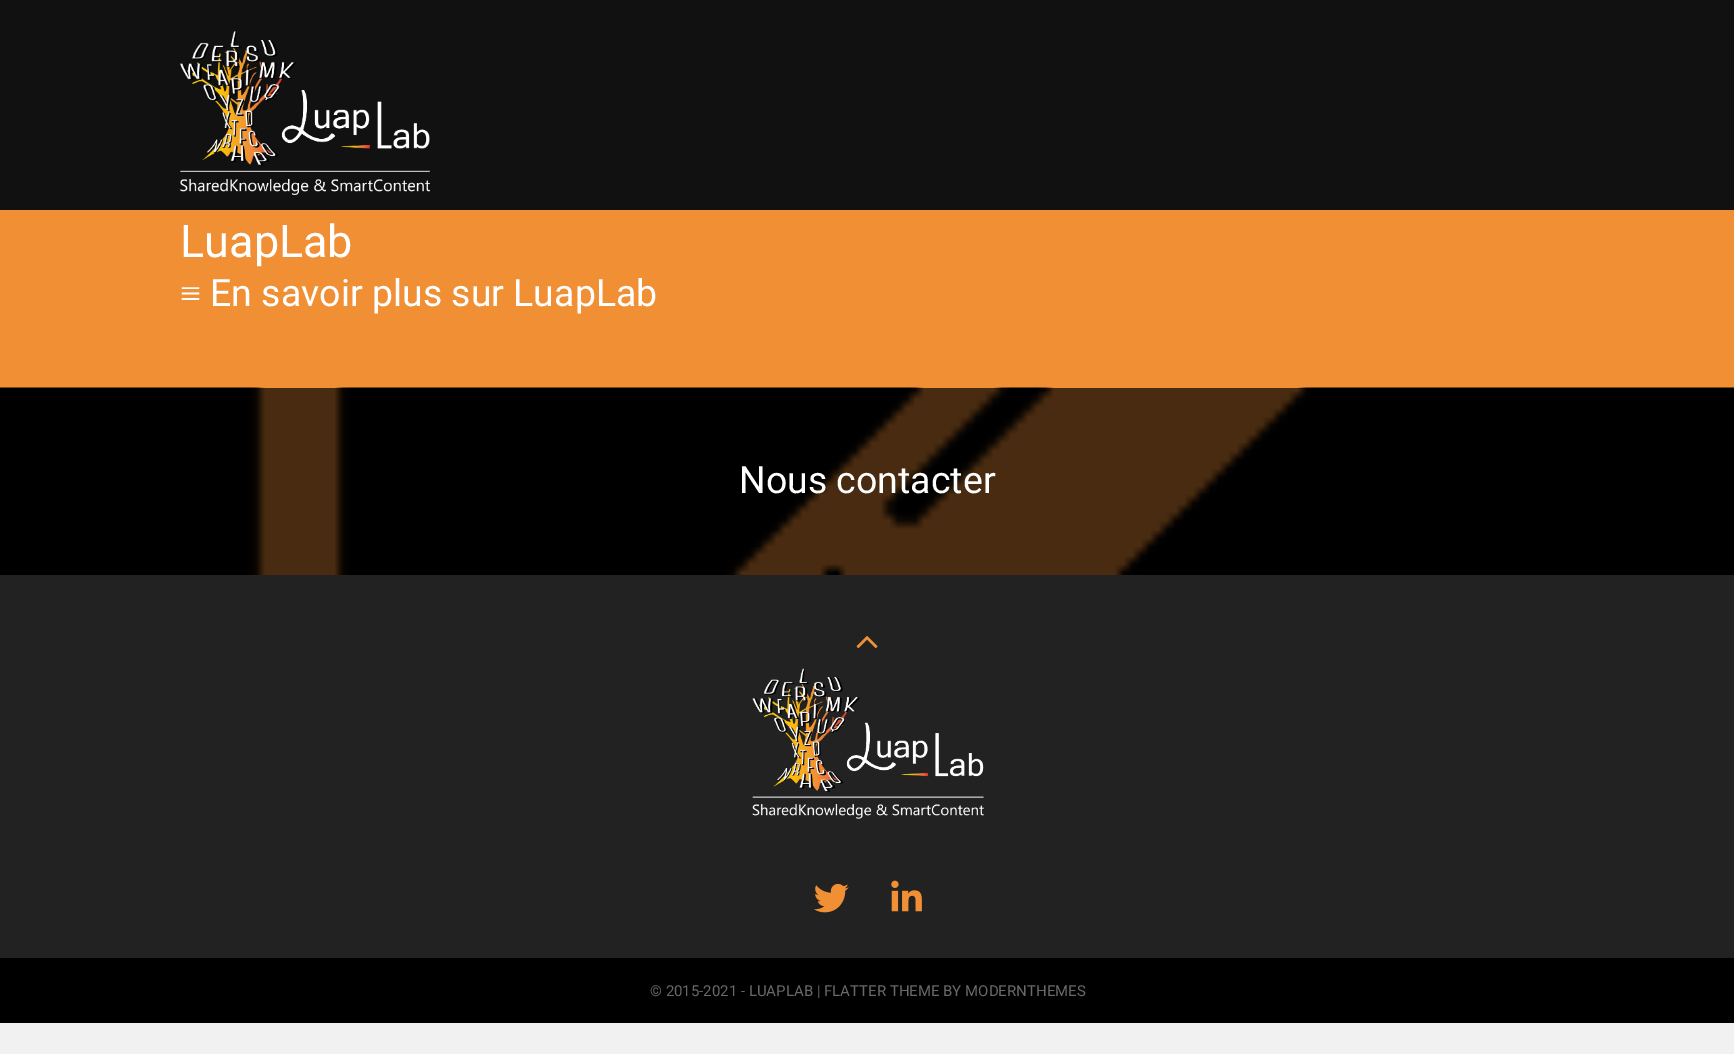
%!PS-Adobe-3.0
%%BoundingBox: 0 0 1734 1054
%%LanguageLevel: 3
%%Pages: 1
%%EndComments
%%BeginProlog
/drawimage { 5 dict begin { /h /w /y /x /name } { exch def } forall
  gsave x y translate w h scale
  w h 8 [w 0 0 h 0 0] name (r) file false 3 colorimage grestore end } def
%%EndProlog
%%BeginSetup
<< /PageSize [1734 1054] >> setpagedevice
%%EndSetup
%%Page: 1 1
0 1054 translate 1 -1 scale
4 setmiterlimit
0.945 setgray
0 0 1734 1054 rectfill
0.067 setgray
0 0 1734 210 rectfill
(images/1.raw) 180 31 250 164 drawimage
0.941 0.561 0.204 setrgbcolor
0 210 1734 178 rectfill
(images/2.raw) 0 387 1734 188 drawimage
0.133 setgray
0 575 1734 383 rectfill
(images/3.raw) 856 636 22 13 drawimage
(images/4.raw) 752 668 232 151 drawimage
(images/5.raw) 814 883 35 30 drawimage
(images/6.raw) 891 880 31 32 drawimage
0 setgray
0 958 1734 65 rectfill
/Roboto-Regular [45 0 0 -45 0 0] selectfont
1 setgray
180 257 moveto (LuapLab) show
/LiberationSerif-Regular [37.5 0 0 -37.5 0 0] selectfont
180 306 moveto (≡) show
/Roboto-Regular [37.5 0 0 -37.5 0 0] selectfont
210 306 moveto (En savoir plus sur LuapLab) show
739 493 moveto (Nous contacter) show
/Roboto-Regular [15 0 0 -15 0 0] selectfont
0.412 setgray
650 996 moveto (© 2015-2021 - LUAPLAB | FLATTER THEME BY MODERNTHEMES) show
showpage
%%EOF
